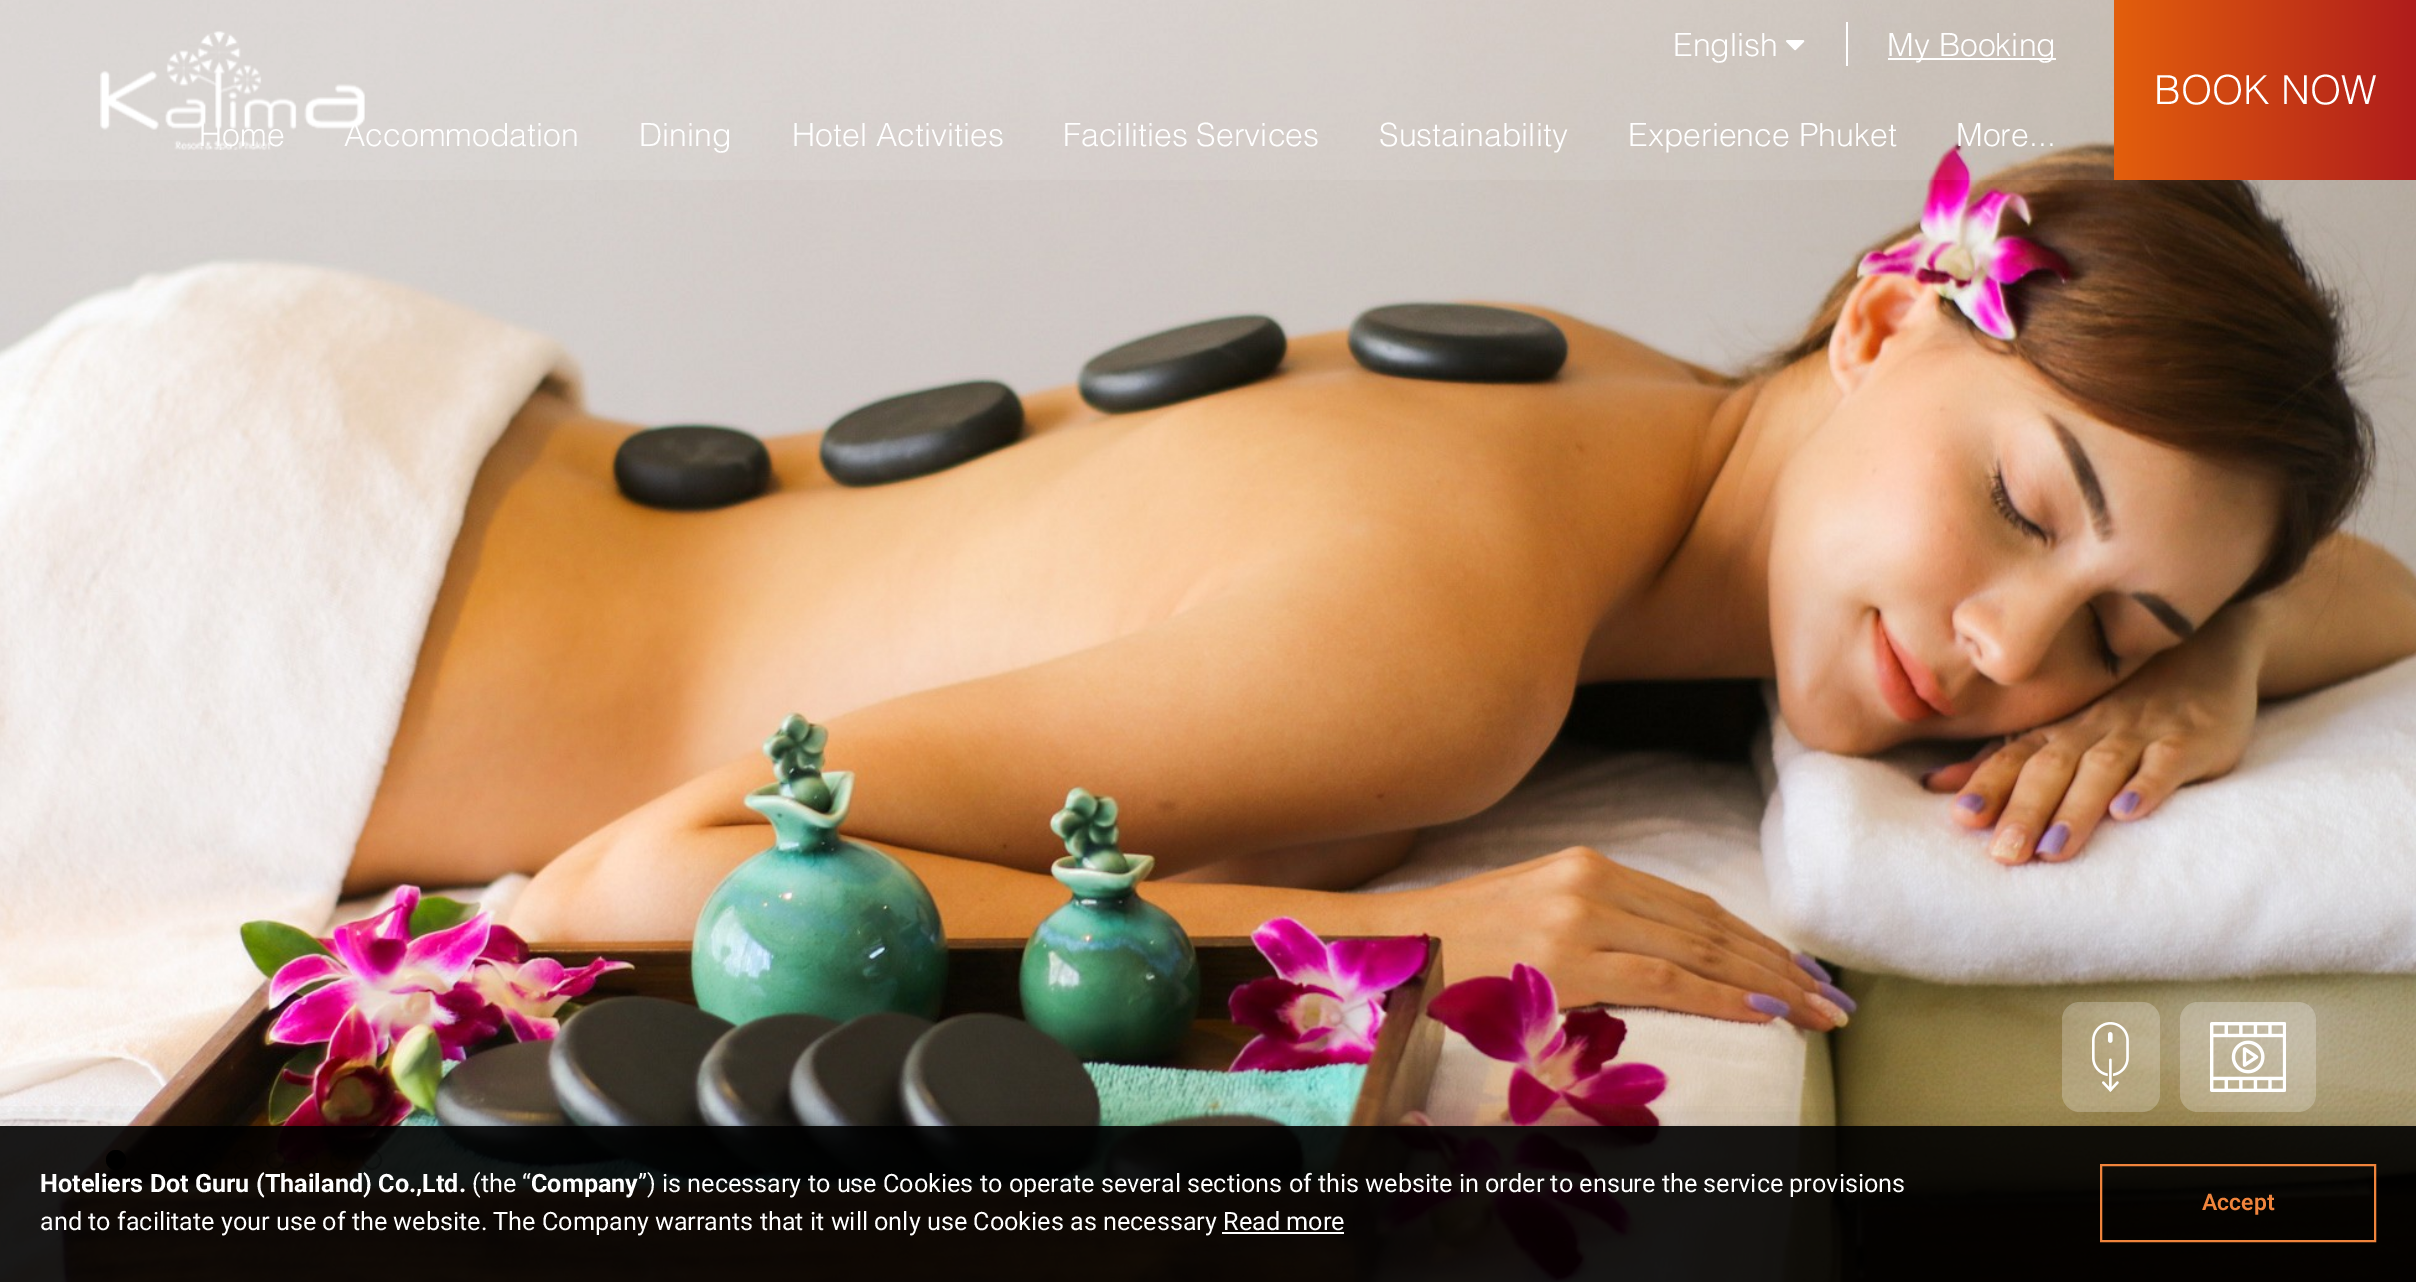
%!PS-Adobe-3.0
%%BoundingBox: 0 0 2416 1282
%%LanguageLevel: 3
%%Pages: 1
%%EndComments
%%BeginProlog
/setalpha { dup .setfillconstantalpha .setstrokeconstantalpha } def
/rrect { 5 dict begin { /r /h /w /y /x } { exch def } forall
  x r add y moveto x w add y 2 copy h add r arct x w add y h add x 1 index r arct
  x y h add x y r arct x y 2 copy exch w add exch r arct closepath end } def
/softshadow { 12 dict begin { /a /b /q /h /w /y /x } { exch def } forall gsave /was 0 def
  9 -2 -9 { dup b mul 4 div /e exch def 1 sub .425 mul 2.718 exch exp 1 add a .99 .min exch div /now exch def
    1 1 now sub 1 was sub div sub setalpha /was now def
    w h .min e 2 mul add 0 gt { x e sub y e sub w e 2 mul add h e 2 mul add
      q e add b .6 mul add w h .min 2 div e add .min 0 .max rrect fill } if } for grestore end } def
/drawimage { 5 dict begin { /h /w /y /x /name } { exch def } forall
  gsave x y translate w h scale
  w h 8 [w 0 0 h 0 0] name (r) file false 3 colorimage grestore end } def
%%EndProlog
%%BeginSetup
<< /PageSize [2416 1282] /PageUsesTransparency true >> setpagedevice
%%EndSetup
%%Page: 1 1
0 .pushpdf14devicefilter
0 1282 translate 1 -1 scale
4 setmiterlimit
1 setgray
0 0 2416 1282 rectfill
(images/1.raw) 0 0 2416 1282 drawimage
0.24 setalpha
2062 1002 98 110 18 rrect fill
1 setalpha
(images/2.raw) 2092 1022 37 70 drawimage
0.24 setalpha
2180 1002 136 110 18 rrect fill
1 setalpha
(images/3.raw) 2210 1022 76 70 drawimage
0 setgray
newpath 116 1160 10 0 360 arc closepath fill
0.3 setalpha
2 setlinewidth
newpath 116 1160 9 0 360 arc closepath stroke
newpath 148 1160 9 0 360 arc closepath stroke
newpath 180 1160 9 0 360 arc closepath stroke
newpath 212 1160 9 0 360 arc closepath stroke
newpath 244 1160 9 0 360 arc closepath stroke
newpath 276 1160 9 0 360 arc closepath stroke
newpath 308 1160 9 0 360 arc closepath stroke
newpath 340 1160 9 0 360 arc closepath stroke
newpath 372 1160 9 0 360 arc closepath stroke
0.08 setalpha
1 setgray
0 0 2114 180 rectfill
1 setalpha
(images/4.raw) 100 31 265 119 drawimage
1846 22 2 44 rectfill
(images/5.raw) 1786 40 19 11 drawimage
1888 58 168 2 rectfill
gsave newpath 2114 0 moveto 2416 0 lineto 2416 180 lineto 2114 180 lineto closepath clip newpath
<< /ShadingType 2 /ColorSpace /DeviceRGB /Coords [2114 90 2416 90] /Extend [true true] /Function << /FunctionType 2 /Domain [0 1] /C0 [0.89 0.373 0.047] /C1 [0.686 0.11 0.11] /N 1 >> >> shfill grestore
gsave
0 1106 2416 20 rectclip
0.008 0.008 0.012 setrgbcolor
0 1144 2416 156 0 26 0.28 softshadow
grestore
0.9 setalpha
0 setgray
0 1126 2416 156 rectfill
1 setalpha
1 setgray
1222 1232 122 2 rectfill
0.941 0.518 0.235 setrgbcolor
2101 1165 274 76 rectstroke
/Helvetica-Light [32 0 0 -32 0 0] selectfont
1 setgray
1673 56 moveto (English) show
1887 56 moveto (My Booking) show
/Helvetica-Light [40 0 0 -40 0 0] selectfont
2154 104 moveto (BOOK NOW) show
/Helvetica-Light [32 0 0 -32 0 0] selectfont
199 146 moveto (Home) show
344 146 moveto (Accommodation) show
639 146 moveto (Dining) show
792 146 moveto (Hotel Activities) show
1063 146 moveto (Facilities Services) show
1379 146 moveto (Sustainability) show
1628 146 moveto (Experience Phuket) show
1956 146 moveto (More...) show
/Roboto-Bold [25.2 0 0 -25.2 0 0] selectfont
40 1192 moveto (Hoteliers Dot Guru \(Thailand\) Co.,Ltd.) show
/Roboto-Regular [25.2 0 0 -25.2 0 0] selectfont
472 1192 moveto (\(the “) show
/Roboto-Bold [25.2 0 0 -25.2 0 0] selectfont
531 1192 moveto (Company) show
/Roboto-Regular [25.2 0 0 -25.2 0 0] selectfont
638 1192 moveto (”\) is necessary to use Cookies to operate several sections of this website in order to ensure the service provisions) show
40 1230 moveto (and to facilitate your use of the website. The Company warrants that it will only use Cookies as necessary) show
1223 1230 moveto (Read more) show
/Roboto-SemiBold [23 0 0 -23 0 0] selectfont
0.941 0.518 0.235 setrgbcolor
2202 1210 moveto (Accept) show
.poppdf14devicefilter showpage
%%EOF
